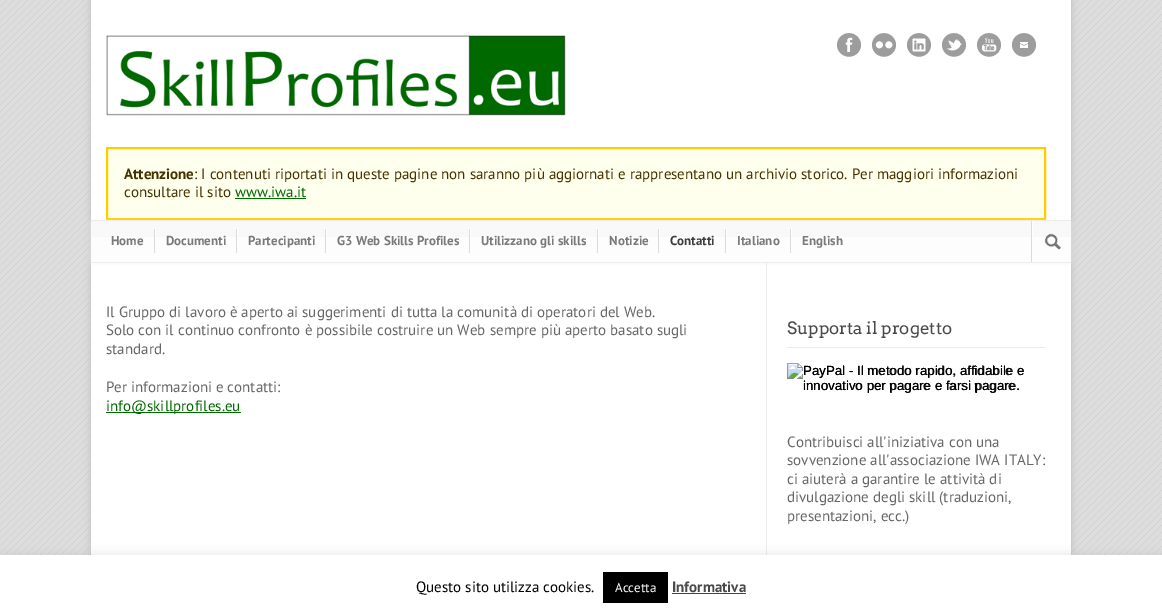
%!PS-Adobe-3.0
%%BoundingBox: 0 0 1162 615
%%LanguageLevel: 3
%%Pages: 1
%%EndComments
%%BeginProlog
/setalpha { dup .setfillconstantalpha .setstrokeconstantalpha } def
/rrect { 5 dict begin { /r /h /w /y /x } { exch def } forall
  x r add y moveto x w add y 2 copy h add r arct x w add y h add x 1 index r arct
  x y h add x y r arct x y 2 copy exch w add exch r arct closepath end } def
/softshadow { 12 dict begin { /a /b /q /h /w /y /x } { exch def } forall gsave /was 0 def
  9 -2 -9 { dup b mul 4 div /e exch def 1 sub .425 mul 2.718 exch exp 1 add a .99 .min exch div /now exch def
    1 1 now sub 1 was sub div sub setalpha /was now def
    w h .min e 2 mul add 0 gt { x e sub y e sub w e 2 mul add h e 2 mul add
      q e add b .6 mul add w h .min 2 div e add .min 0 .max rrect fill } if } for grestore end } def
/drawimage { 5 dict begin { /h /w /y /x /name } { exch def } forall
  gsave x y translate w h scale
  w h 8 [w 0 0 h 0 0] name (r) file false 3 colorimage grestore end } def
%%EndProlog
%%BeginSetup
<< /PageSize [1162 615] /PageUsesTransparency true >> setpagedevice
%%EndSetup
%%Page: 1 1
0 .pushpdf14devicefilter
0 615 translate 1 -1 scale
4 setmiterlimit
0.867 setgray
0 0 1162 615 rectfill
(images/1.raw) 0 0 1162 555 drawimage
0.733 setgray
91 0 980 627 0 4 1 softshadow
1 setgray
91 0 980 555 rectfill
(images/2.raw) 106 35 460 81 drawimage
(images/3.raw) 837 33 24 24 drawimage
(images/4.raw) 872 33 24 24 drawimage
(images/5.raw) 907 33 24 24 drawimage
(images/6.raw) 942 33 24 24 drawimage
(images/7.raw) 977 33 24 24 drawimage
(images/8.raw) 1012 33 24 24 drawimage
1 1 0.933 setrgbcolor
newpath 107 148 moveto 1045 148 lineto 1045 219 lineto 107 219 lineto closepath gsave fill grestore
1 0.8 0 setrgbcolor
2 setlinewidth
stroke
0 0.412 0 setrgbcolor
235 198 71 1 rectfill
0.961 setgray
92 222 978 41 0 2.5 1 softshadow
0.992 setgray
92 222 978 40 rectfill
(images/9.raw) 91 221 980 16 drawimage
0.925 setgray
91 220 980 1 rectfill
91 262 980 1 rectfill
0.859 setgray
154 229 1 24 rectfill
236 229 1 24 rectfill
1 setgray
155 229 1 8 rectfill
0.859 setgray
325 229 1 24 rectfill
1 setgray
237 229 1 8 rectfill
0.859 setgray
469 229 1 24 rectfill
1 setgray
326 229 1 8 rectfill
0.859 setgray
597 229 1 24 rectfill
1 setgray
470 229 1 8 rectfill
0.859 setgray
658 229 1 24 rectfill
1 setgray
598 229 1 8 rectfill
0.859 setgray
725 229 1 24 rectfill
1 setgray
659 229 1 8 rectfill
0.859 setgray
790 229 1 24 rectfill
1 setgray
726 229 1 8 rectfill
791 229 1 8 rectfill
0.859 setgray
1031 221 1 41 rectfill
1 setgray
1032 221 1 16 rectfill
(images/10.raw) 1044 233 17 17 drawimage
0 0.412 0 setrgbcolor
106 412 135 1 rectfill
0.925 setgray
766 263 1 292 rectfill
787 347 259 1 rectfill
(images/11.raw) 787 363 237 30 drawimage
0.675 0.671 0.671 setrgbcolor
0 554 1162 60 0 5 0.3 softshadow
1 setgray
0 555 1162 60 rectfill
0 setgray
603 572 65 31 rectfill
0.267 setgray
672 593 74 1 rectfill
/PTSans-Bold [15 0 0 -15 0 0] selectfont
0.267 0.2 0 setrgbcolor
124 179 moveto (Attenzione) show
/PTSans-Regular [15 0 0 -15 0 0] selectfont
194 179 moveto (: I contenuti riportati in queste pagine non saranno più aggiornati e rappresentano un archivio storico. Per maggiori informazioni) show
124 197 moveto (consultare il sito) show
0 0.412 0 setrgbcolor
235 197 moveto (www.iwa.it) show
/PTSans-Bold [13 0 0 -13 0 0] selectfont
0.478 setgray
111 245 moveto (Home) show
166 245 moveto (Documenti) show
248 245 moveto (Partecipanti) show
337 245 moveto (G3 Web Skills Profiles) show
481 245 moveto (Utilizzano gli skills) show
609 245 moveto (Notizie) show
0.239 setgray
670 245 moveto (Contatti) show
0.478 setgray
737 245 moveto (Italiano) show
802 245 moveto (English) show
/PTSans-Regular [15 0 0 -15 0 0] selectfont
0.4 setgray
106 317 moveto (Il Gruppo di lavoro è aperto ai suggerimenti di tutta la comunità di operatori del Web.) show
106 335 moveto (Solo con il continuo confronto è possibile costruire un Web sempre più aperto basato sugli) show
106 354 moveto (standard.) show
106 392 moveto (Per informazioni e contatti:) show
0 0.412 0 setrgbcolor
106 411 moveto (info@skillprofiles.eu) show
/Arvo-Regular [17 0 0 -17 0 0] selectfont
0.286 setgray
787 334 moveto (Supporta il progetto) show
/LiberationSans-Regular [13.3 0 0 -13.3 0 0] selectfont
0 setgray
803 375 moveto (PayPal - Il metodo rapido, affidabile e) show
803 390 moveto (innovativo per pagare e farsi pagare.) show
/PTSans-Regular [15 0 0 -15 0 0] selectfont
0.4 setgray
787 447 moveto (Contribuisci all'iniziativa con una) show
787 465 moveto (sovvenzione all'associazione IWA ITALY:) show
787 484 moveto (ci aiuterà a garantire le attività di) show
787 502 moveto (divulgazione degli skill \(traduzioni,) show
787 521 moveto (presentazioni, ecc.\)) show
0 setgray
416 592 moveto (Questo sito utilizza cookies.) show
/PTSans-Regular [13 0 0 -13 0 0] selectfont
1 setgray
615 592 moveto (Accetta) show
/PTSans-Bold [15 0 0 -15 0 0] selectfont
0.286 setgray
672 592 moveto (Informativa) show
.poppdf14devicefilter showpage
%%EOF
